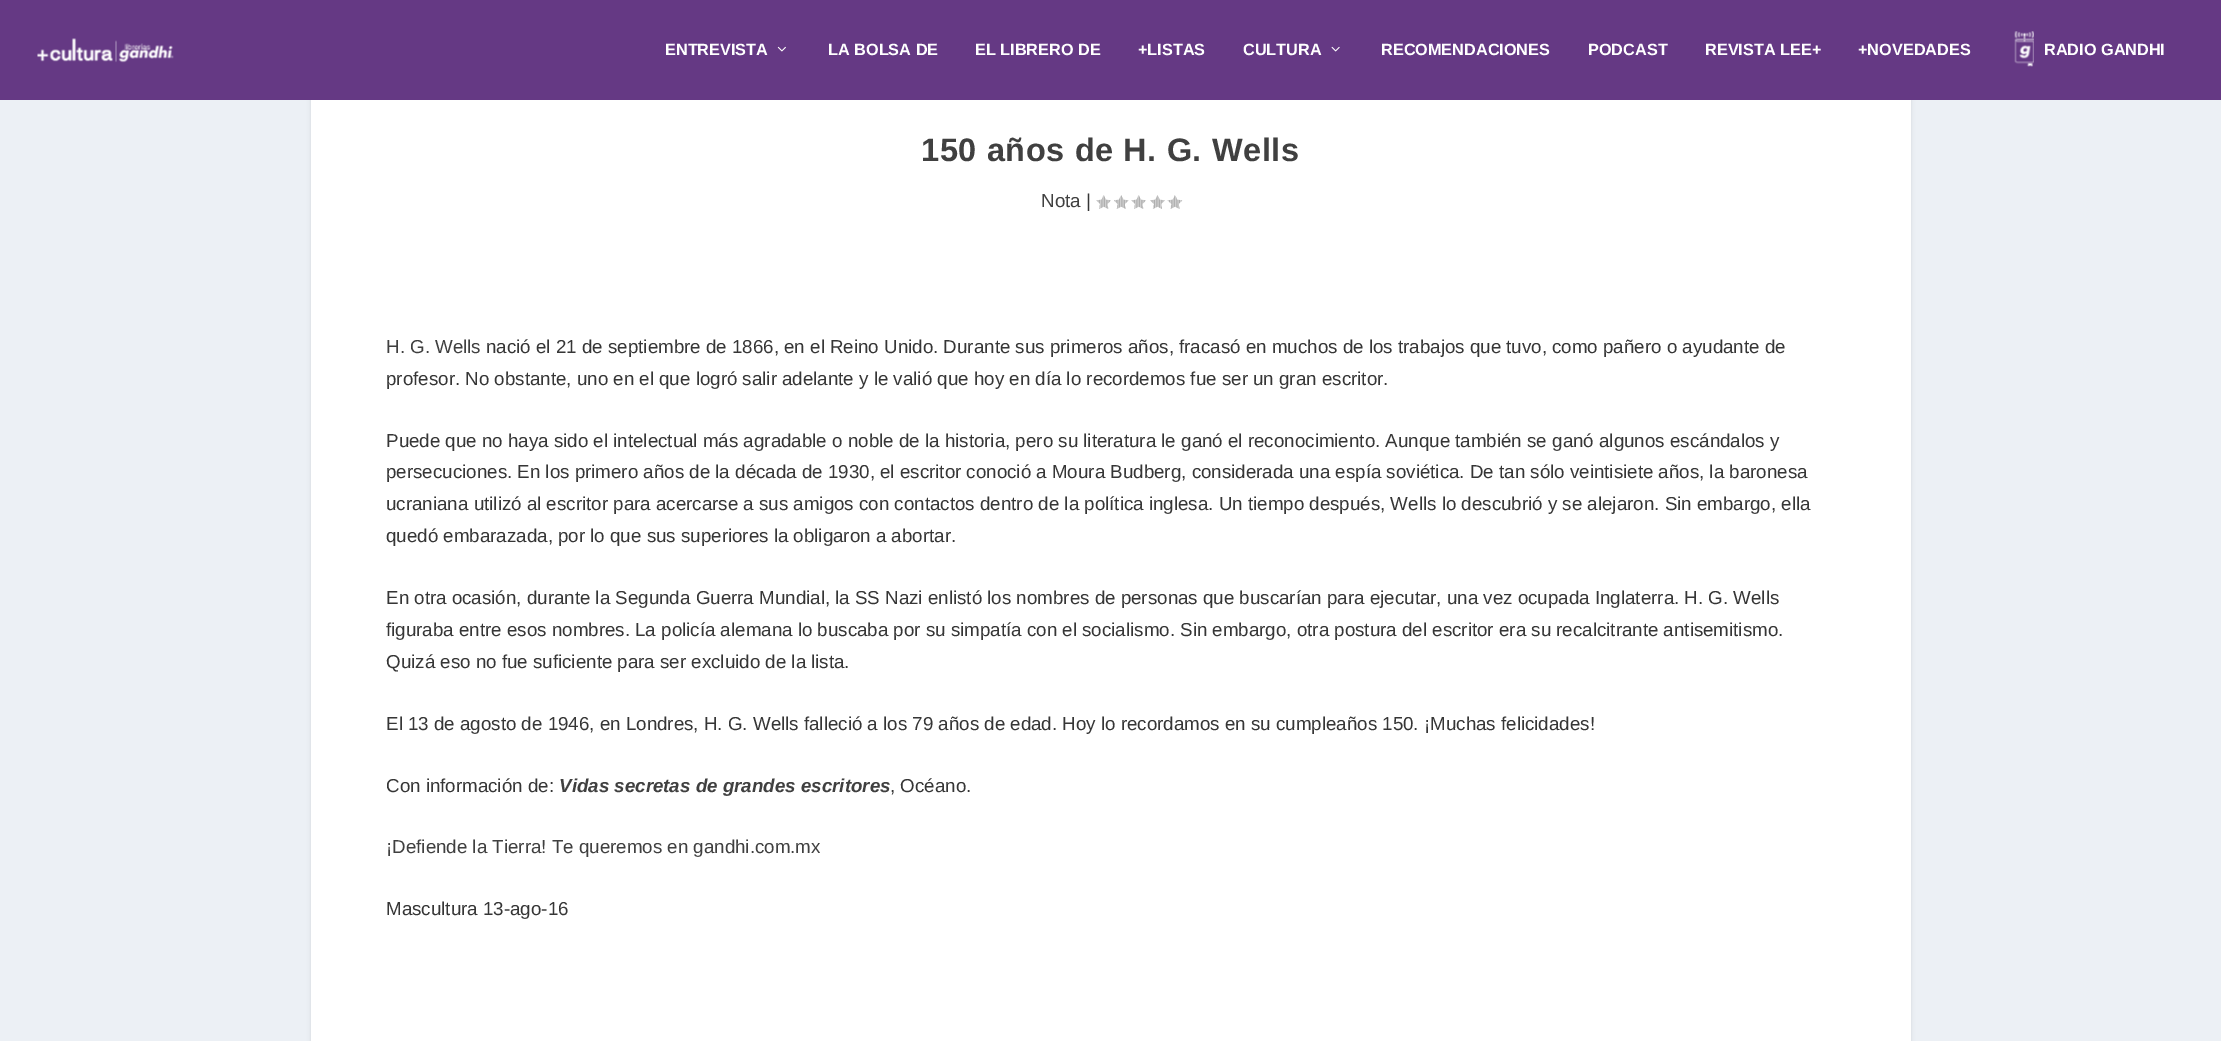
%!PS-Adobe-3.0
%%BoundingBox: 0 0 2221 1041
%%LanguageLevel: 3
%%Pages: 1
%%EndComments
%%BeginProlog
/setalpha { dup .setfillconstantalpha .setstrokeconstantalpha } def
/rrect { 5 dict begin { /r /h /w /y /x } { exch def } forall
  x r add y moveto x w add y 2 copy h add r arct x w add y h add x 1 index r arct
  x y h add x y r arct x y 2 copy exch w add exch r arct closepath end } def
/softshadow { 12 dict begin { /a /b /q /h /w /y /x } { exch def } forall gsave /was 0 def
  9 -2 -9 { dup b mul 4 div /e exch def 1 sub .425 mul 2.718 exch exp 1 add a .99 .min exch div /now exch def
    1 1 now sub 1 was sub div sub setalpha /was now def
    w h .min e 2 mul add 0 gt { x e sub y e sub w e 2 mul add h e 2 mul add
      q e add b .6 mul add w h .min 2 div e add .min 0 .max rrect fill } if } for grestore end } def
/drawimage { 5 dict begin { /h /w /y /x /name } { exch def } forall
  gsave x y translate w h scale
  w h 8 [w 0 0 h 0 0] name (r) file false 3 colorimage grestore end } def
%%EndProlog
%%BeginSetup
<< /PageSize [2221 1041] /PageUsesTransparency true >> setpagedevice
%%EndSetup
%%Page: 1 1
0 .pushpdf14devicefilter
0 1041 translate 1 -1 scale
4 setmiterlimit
0.925 0.941 0.961 setrgbcolor
0 0 2221 1041 rectfill
0 setgray
311 56 1600 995 4 2 0.1 softshadow
0.396 0.224 0.518 setrgbcolor
0 0 2221 100 rectfill
(images/1.raw) 37 38 137 25 drawimage
(images/2.raw) 777 46 9 6 drawimage
(images/3.raw) 1331 46 9 6 drawimage
(images/4.raw) 2014 31 20 36 drawimage
1 setgray
311 100 1600 941 rectfill
(images/5.raw) 1096 195 15 14 drawimage
(images/6.raw) 1114 195 15 14 drawimage
(images/5.raw) 1131 195 15 14 drawimage
(images/7.raw) 1150 195 15 14 drawimage
(images/8.raw) 1167 195 16 14 drawimage
/LiberationSans-Bold [16.25 0 0 -16.25 0 0] selectfont
665 55 moveto (ENTREVISTA) show
828 55 moveto (LA BOLSA DE) show
975 55 moveto (EL LIBRERO DE) show
1138 55 moveto (+LISTAS) show
1243 55 moveto (CULTURA) show
1381 55 moveto (RECOMENDACIONES) show
1588 55 moveto (PODCAST) show
1705 55 moveto (REVISTA LEE+) show
1858 55 moveto (+NOVEDADES) show
2044 55 moveto (RADIO GANDHI) show
/LiberationSans-Bold [32.5 0 0 -32.5 0 0] selectfont
0.251 setgray
921 161 moveto 0.6 0 (150 años de H. G. Wells) ashow
/LiberationSans-Regular [18.75 0 0 -18.75 0 0] selectfont
1041 207 moveto (Nota) show
0.212 setgray
1086 207 moveto (|) show
0.251 setgray
386 353 moveto (H. G. Wells) show
0.212 setgray
486 353 moveto (nació el 21 de septiembre de 1866, en el Reino Unido. Durante sus primeros años, fracasó en muchos de los trabajos que tuvo, como pañero o ayudante de) show
386 385 moveto (profesor. No obstante, uno en el que logró salir adelante y le valió que hoy en día lo recordemos fue ser un gran escritor.) show
386 447 moveto (Puede que no haya sido el intelectual más agradable o noble de la historia, pero su literatura le ganó el reconocimiento. Aunque también se ganó algunos escándalos y) show
386 478 moveto (persecuciones. En los primero años de la década de 1930, el escritor conoció a Moura Budberg, considerada una espía soviética. De tan sólo veintisiete años, la baronesa) show
386 510 moveto (ucraniana utilizó al escritor para acercarse a sus amigos con contactos dentro de la política inglesa. Un tiempo después, Wells lo descubrió y se alejaron. Sin embargo, ella) show
386 542 moveto (quedó embarazada, por lo que sus superiores la obligaron a abortar.) show
386 604 moveto (En otra ocasión, durante la Segunda Guerra Mundial, la SS Nazi enlistó los nombres de personas que buscarían para ejecutar, una vez ocupada Inglaterra. H. G. Wells) show
386 636 moveto (figuraba entre esos nombres. La policía alemana lo buscaba por su simpatía con el socialismo. Sin embargo, otra postura del escritor era su recalcitrante antisemitismo.) show
386 668 moveto (Quizá eso no fue suficiente para ser excluido de la lista.) show
386 730 moveto (El 13 de agosto de 1946, en Londres, H. G. Wells falleció a los 79 años de edad. Hoy lo recordamos en su cumpleaños 150. ¡Muchas felicidades!) show
386 792 moveto (Con información de:) show
/LiberationSans-BoldItalic [18.75 0 0 -18.75 0 0] selectfont
0.251 setgray
559 792 moveto (Vidas secretas de grandes escritores) show
/LiberationSans-Regular [18.75 0 0 -18.75 0 0] selectfont
0.212 setgray
890 792 moveto (, Océano.) show
0.251 setgray
386 853 moveto (¡Defiende la Tierra! Te queremos en gandhi.com.mx) show
0.212 setgray
386 915 moveto (Mascultura 13-ago-16) show
.poppdf14devicefilter showpage
%%EOF
